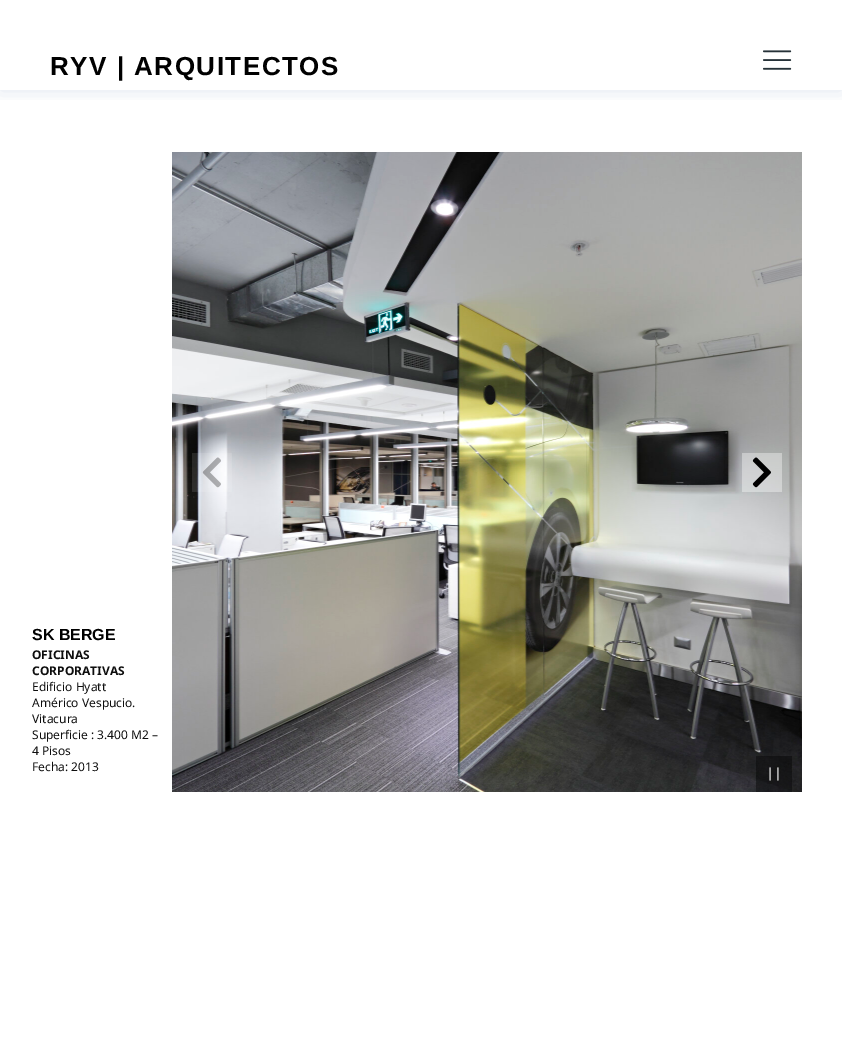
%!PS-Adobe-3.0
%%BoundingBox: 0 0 842 1062
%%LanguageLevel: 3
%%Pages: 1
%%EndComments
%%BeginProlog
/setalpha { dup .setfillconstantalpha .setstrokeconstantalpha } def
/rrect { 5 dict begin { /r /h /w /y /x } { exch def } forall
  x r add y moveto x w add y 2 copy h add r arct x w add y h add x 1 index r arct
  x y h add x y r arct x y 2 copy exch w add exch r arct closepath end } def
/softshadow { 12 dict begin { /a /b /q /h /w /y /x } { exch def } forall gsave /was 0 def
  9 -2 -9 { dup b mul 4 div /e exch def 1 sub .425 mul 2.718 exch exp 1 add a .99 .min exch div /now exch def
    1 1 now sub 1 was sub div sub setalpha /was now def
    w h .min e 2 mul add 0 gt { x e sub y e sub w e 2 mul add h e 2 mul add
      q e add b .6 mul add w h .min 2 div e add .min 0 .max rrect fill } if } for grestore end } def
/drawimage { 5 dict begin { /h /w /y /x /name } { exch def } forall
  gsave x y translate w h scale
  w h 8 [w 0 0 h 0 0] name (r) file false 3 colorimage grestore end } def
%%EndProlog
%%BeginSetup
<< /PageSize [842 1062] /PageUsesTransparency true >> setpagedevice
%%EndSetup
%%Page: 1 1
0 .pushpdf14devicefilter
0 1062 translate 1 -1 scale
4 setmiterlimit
1 setgray
0 0 842 1062 rectfill
gsave
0 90 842 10 rectclip
0.078 0.184 0.494 setrgbcolor
0 0 842 90 0 10 0.13 softshadow
grestore
(images/1.raw) 763 50 29 20 drawimage
(images/2.raw) 172 152 630 640 drawimage
0.11 setalpha
192 453 40 39 rectfill
1 setalpha
(images/3.raw) 202 457 19 31 drawimage
0.37 setalpha
742 453 40 39 rectfill
1 setalpha
(images/4.raw) 752 457 19 31 drawimage
0.4 setalpha
0 setgray
756 756 36 36 rectfill
1 setalpha
(images/5.raw) 769 767 10 14 drawimage
/LiberationSans-Bold [26 0 0 -26 0 0] selectfont
50 75 moveto 1.5 0 (RYV | ARQUITECTOS) ashow
/LiberationSans-Bold [16 0 0 -16 0 0] selectfont
32 640 moveto (SK BERGE) show
/NotoSans-Bold [12 0 0 -12 0 0] selectfont
0.055 setgray
32 659 moveto (OFICINAS) show
32 675 moveto (CORPORATIVAS) show
/NotoSans-Regular [12 0 0 -12 0 0] selectfont
32 691 moveto (Edificio Hyatt) show
32 707 moveto (Américo Vespucio.) show
32 723 moveto (Vitacura) show
32 739 moveto (Superficie : 3.400 M2 –) show
32 755 moveto (4 Pisos) show
32 771 moveto (Fecha: 2013) show
.poppdf14devicefilter showpage
%%EOF
